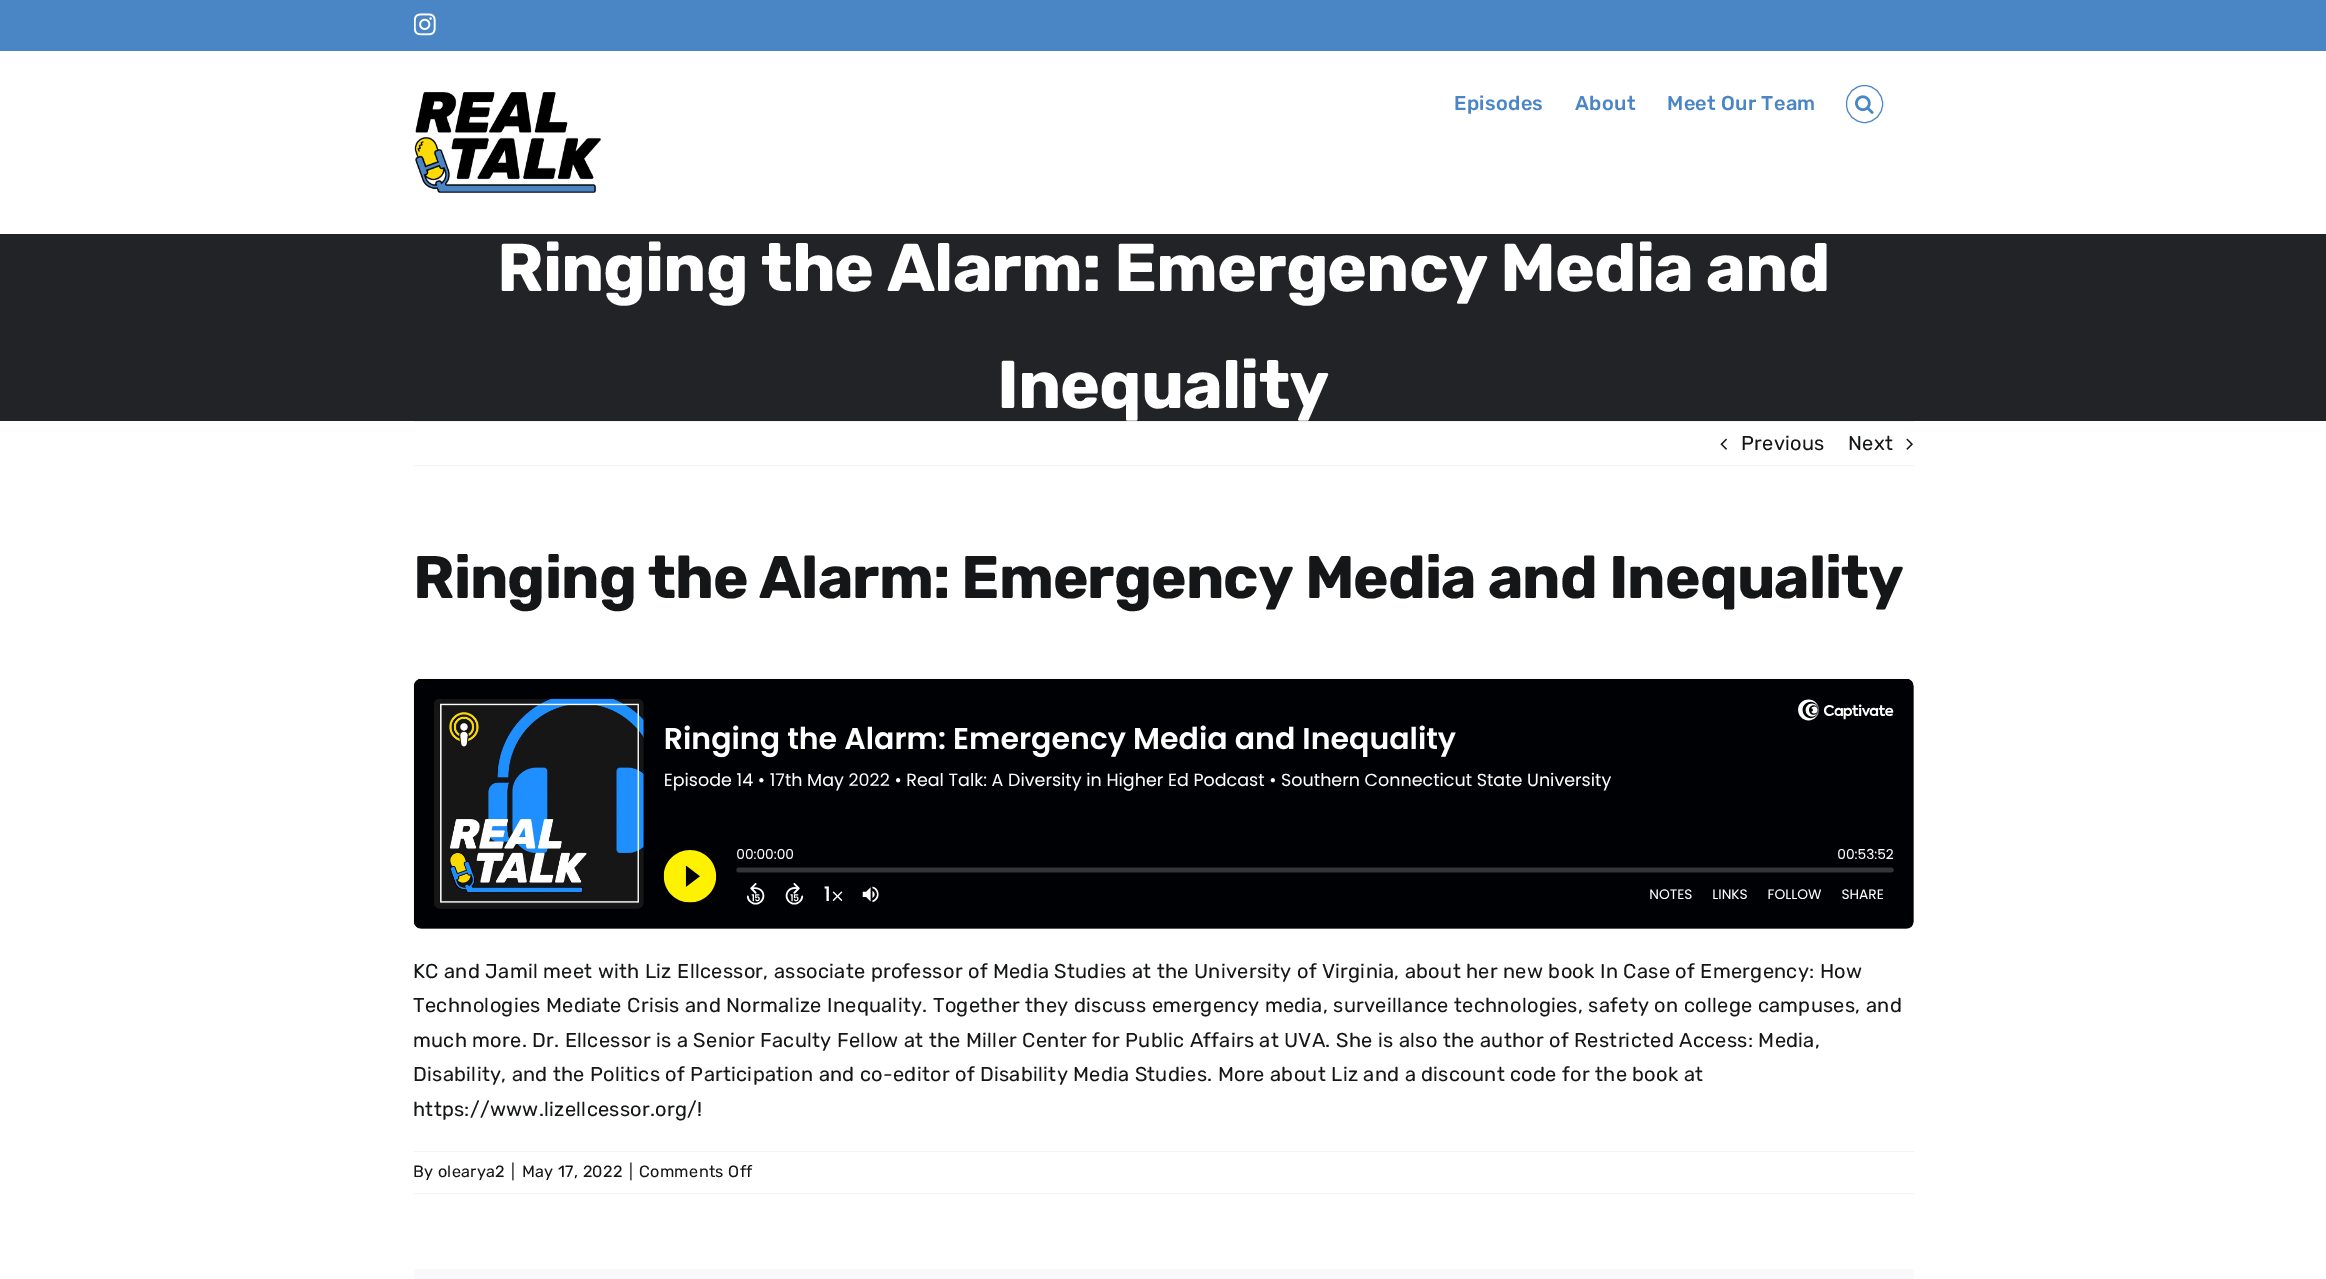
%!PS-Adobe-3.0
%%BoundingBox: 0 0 2326 1279
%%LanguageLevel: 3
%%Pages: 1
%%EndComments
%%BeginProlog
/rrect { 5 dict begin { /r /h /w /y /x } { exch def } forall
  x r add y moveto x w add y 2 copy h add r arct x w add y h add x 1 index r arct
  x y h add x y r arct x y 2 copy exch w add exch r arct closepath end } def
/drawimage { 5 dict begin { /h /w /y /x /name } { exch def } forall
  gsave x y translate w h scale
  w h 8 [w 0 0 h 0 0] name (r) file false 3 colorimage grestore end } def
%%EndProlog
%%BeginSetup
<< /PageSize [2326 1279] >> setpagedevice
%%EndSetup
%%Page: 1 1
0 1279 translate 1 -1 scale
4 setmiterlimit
1 setgray
0 0 2326 1279 rectfill
0.29 0.522 0.773 setrgbcolor
0 0 2326 51 rectfill
(images/1.raw) 414 13 22 23 drawimage
(images/2.raw) 414 92 187 101 drawimage
1846.5 85.5 36 37 18 rrect stroke
(images/3.raw) 1855 95 19 19 drawimage
0.129 0.137 0.149 setrgbcolor
0 234 2326 187 rectfill
0.949 0.953 0.961 setrgbcolor
414 421 1500 1 rectfill
414 465 1500 1 rectfill
(images/4.raw) 1720 438 7 12 drawimage
(images/5.raw) 1906 438 7 12 drawimage
(images/6.raw) 413 678 1501 251 drawimage
414 1151 1500 1 rectfill
414 1193 1500 1 rectfill
0.976 0.976 0.984 setrgbcolor
414 1269 1500 10 rectfill
/Rubik-Medium [20 0 0 -20 0 0] selectfont
0.29 0.522 0.773 setrgbcolor
1454 110 moveto 0.3 0 (Episodes) ashow
1575 110 moveto 0.3 0 (About) ashow
1667 110 moveto 0.3 0 (Meet Our Team) ashow
/Rubik-Bold [67.5 0 0 -67.5 0 0] selectfont
1 setgray
497 291 moveto -1 0 (Ringing the Alarm: Emergency Media and) ashow
997 408 moveto -1 0 (Inequality) ashow
/Rubik-Regular [20 0 0 -20 0 0] selectfont
0.078 0.086 0.09 setrgbcolor
1741 450 moveto 0.3 0 (Previous) ashow
1848 450 moveto 0.3 0 (Next) ashow
/Rubik-Bold [60 0 0 -60 0 0] selectfont
413 598 moveto -0.9 0 (Ringing the Alarm: Emergency Media and Inequality) ashow
/Rubik-Regular [20 0 0 -20 0 0] selectfont
413 978 moveto 0.3 0 (KC and Jamil meet with Liz Ellcessor, associate professor of Media Studies at the University of Virginia, about her new book In Case of Emergency: How) ashow
413 1012 moveto 0.3 0 (Technologies Mediate Crisis and Normalize Inequality. Together they discuss emergency media, surveillance technologies, safety on college campuses, and) ashow
413 1047 moveto 0.3 0 (much more. Dr. Ellcessor is a Senior Faculty Fellow at the Miller Center for Public Affairs at UVA. She is also the author of Restricted Access: Media,) ashow
413 1081 moveto 0.3 0 (Disability, and the Politics of Participation and co-editor of Disability Media Studies. More about Liz and a discount code for the book at) ashow
413 1116 moveto 0.3 0 (https://www.lizellcessor.org/!) ashow
/Rubik-Regular [16.25 0 0 -16.25 0 0] selectfont
413 1177 moveto 0.3 0 (By olearya2) ashow
511 1177 moveto 0.3 0 (|) ashow
522 1177 moveto 0.3 0 (May 17, 2022) ashow
629 1177 moveto 0.3 0 (|) ashow
639 1177 moveto 0.3 0 (Comments Off) ashow
showpage
%%EOF
